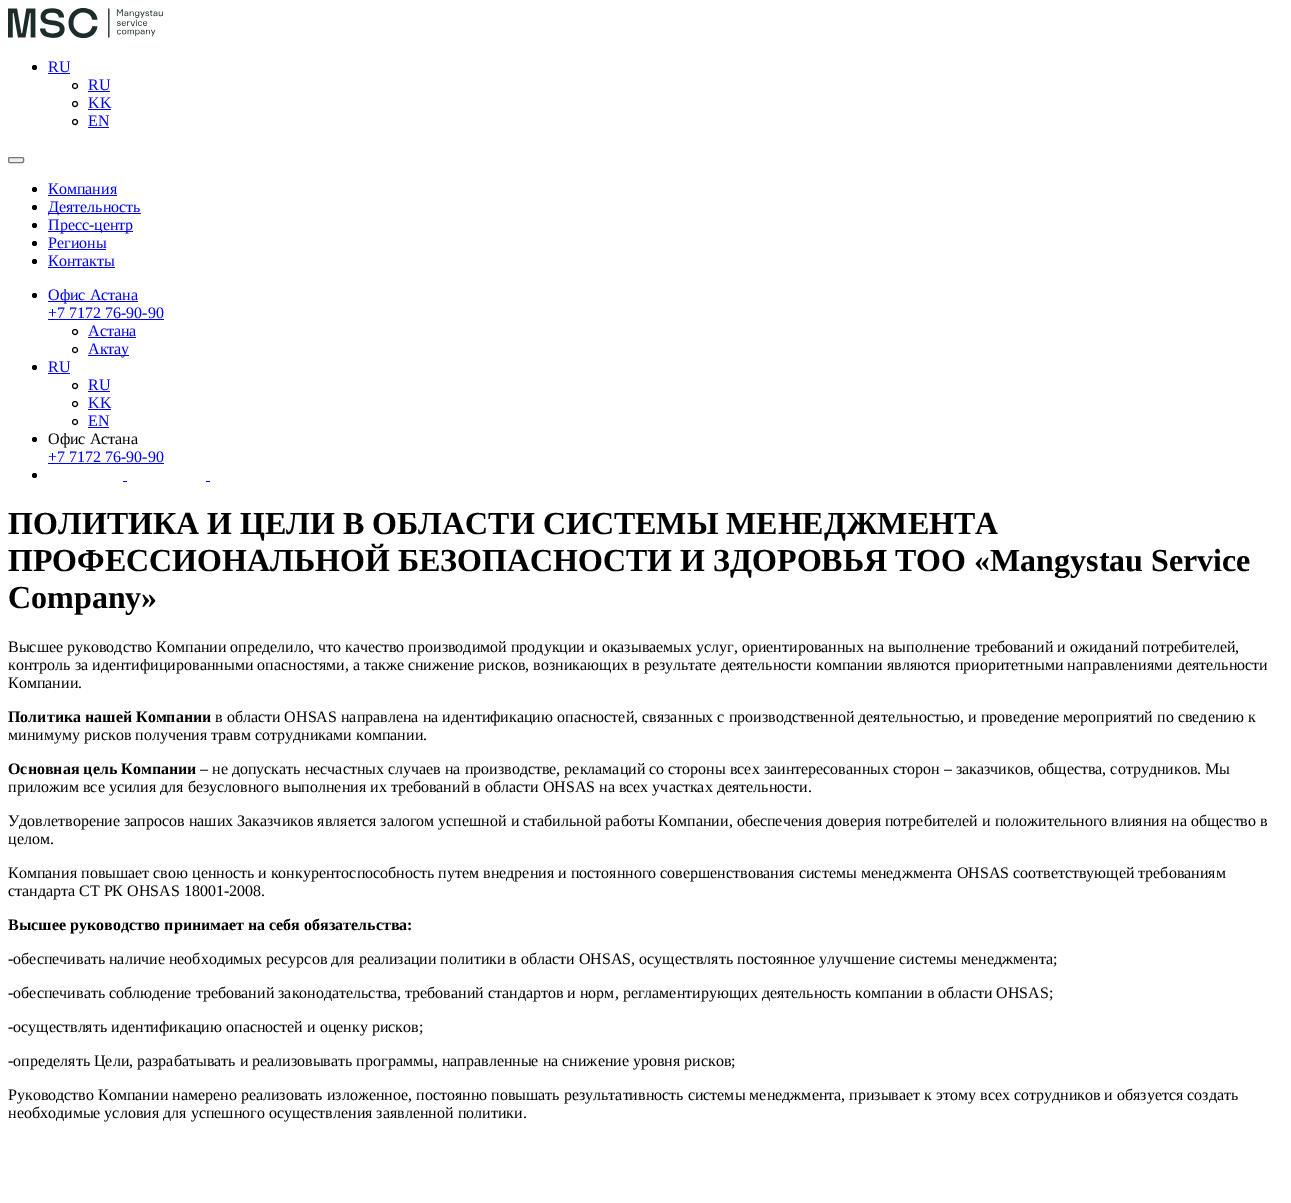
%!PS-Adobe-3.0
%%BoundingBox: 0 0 1291 1203
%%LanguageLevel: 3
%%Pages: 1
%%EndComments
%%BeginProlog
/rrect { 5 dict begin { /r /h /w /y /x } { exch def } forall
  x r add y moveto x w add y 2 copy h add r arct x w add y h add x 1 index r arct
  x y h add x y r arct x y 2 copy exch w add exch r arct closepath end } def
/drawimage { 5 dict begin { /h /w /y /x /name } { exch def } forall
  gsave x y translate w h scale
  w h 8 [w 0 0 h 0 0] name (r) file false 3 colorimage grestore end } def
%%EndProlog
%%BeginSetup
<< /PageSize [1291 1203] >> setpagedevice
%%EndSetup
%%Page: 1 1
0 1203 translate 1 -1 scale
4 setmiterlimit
1 setgray
0 0 1291 1203 rectfill
(images/1.raw) 8 8 155 30 drawimage
0 setgray
newpath 34.5 67.5 2.5 0 360 arc closepath fill
0 0 0.933 setrgbcolor
48 73 22 1 rectfill
0 setgray
newpath 75 86 2.5 0 360 arc closepath stroke
0 0 0.933 setrgbcolor
88 91 22 1 rectfill
0 setgray
newpath 75 104 2.5 0 360 arc closepath stroke
0 0 0.933 setrgbcolor
88 109 23 1 rectfill
0 setgray
newpath 75 122 2.5 0 360 arc closepath stroke
0 0 0.933 setrgbcolor
88 127 21 1 rectfill
0.937 setgray
8.5 157.5 15 5 1.5 rrect gsave fill grestore
0.463 setgray
stroke
0 setgray
newpath 34.5 189.5 2.5 0 360 arc closepath fill
0 0 0.933 setrgbcolor
48 195 69 1 rectfill
0 setgray
newpath 34.5 207.5 2.5 0 360 arc closepath fill
0 0 0.933 setrgbcolor
48 213 93 1 rectfill
0 setgray
newpath 34.5 225.5 2.5 0 360 arc closepath fill
0 0 0.933 setrgbcolor
48 231 85 1 rectfill
0 setgray
newpath 34.5 243.5 2.5 0 360 arc closepath fill
0 0 0.933 setrgbcolor
48 249 58 1 rectfill
0 setgray
newpath 34.5 261.5 2.5 0 360 arc closepath fill
0 0 0.933 setrgbcolor
48 267 67 1 rectfill
0 setgray
newpath 34.5 295.5 2.5 0 360 arc closepath fill
0 0 0.933 setrgbcolor
48 301 90 1 rectfill
48 319 116 1 rectfill
0 setgray
newpath 75 332 2.5 0 360 arc closepath stroke
0 0 0.933 setrgbcolor
88 337 48 1 rectfill
0 setgray
newpath 75 350 2.5 0 360 arc closepath stroke
0 0 0.933 setrgbcolor
88 355 41 1 rectfill
0 setgray
newpath 34.5 367.5 2.5 0 360 arc closepath fill
0 0 0.933 setrgbcolor
48 373 22 1 rectfill
0 setgray
newpath 75 386 2.5 0 360 arc closepath stroke
0 0 0.933 setrgbcolor
88 391 22 1 rectfill
0 setgray
newpath 75 404 2.5 0 360 arc closepath stroke
0 0 0.933 setrgbcolor
88 409 23 1 rectfill
0 setgray
newpath 75 422 2.5 0 360 arc closepath stroke
0 0 0.933 setrgbcolor
88 427 21 1 rectfill
0 setgray
newpath 34.5 439.5 2.5 0 360 arc closepath fill
0 0 0.933 setrgbcolor
48 463 116 1 rectfill
0 setgray
newpath 34.5 475.5 2.5 0 360 arc closepath fill
0 0 0.933 setrgbcolor
123 481 4 1 rectfill
206 481 4 1 rectfill
/LiberationSerif-Regular [16 0 0 -16 0 0] selectfont
48 72 moveto (RU) show
88 90 moveto (RU) show
88 108 moveto (KK) show
88 126 moveto (EN) show
48 194 moveto (Компания) show
48 212 moveto (Деятельность) show
48 230 moveto (Пресс-центр) show
48 248 moveto (Регионы) show
48 266 moveto (Контакты) show
48 300 moveto (Офис Астана) show
48 318 moveto (+7 7172 76-90-90) show
88 336 moveto (Астана) show
88 354 moveto (Актау) show
48 372 moveto (RU) show
88 390 moveto (RU) show
88 408 moveto (KK) show
88 426 moveto (EN) show
0 setgray
48 444 moveto (Офис Астана) show
0 0 0.933 setrgbcolor
48 462 moveto (+7 7172 76-90-90) show
/LiberationSerif-Bold [32 0 0 -32 0 0] selectfont
0 setgray
8 534 moveto (ПОЛИТИКА И ЦЕЛИ В ОБЛАСТИ CИСТЕМЫ МЕНЕДЖМЕНТА) show
8 571 moveto (ПРОФЕССИОНАЛЬНОЙ БЕЗОПАСНОСТИ И ЗДОРОВЬЯ ТОО «Mangystau Service) show
8 608 moveto (Company») show
/LiberationSerif-Regular [16 0 0 -16 0 0] selectfont
8 652 moveto (Высшее руководство Компании определило, что качество производимой продукции и оказываемых услуг, ориентированных на выполнение требований и ожиданий потребителей,) show
8 670 moveto (контроль за идентифицированными опасностями, а также снижение рисков, возникающих в результате деятельности компании являются приоритетными направлениями деятельности) show
8 688 moveto (Компании.) show
/LiberationSerif-Bold [16 0 0 -16 0 0] selectfont
8 722 moveto (Политика нашей Компании) show
/LiberationSerif-Regular [16 0 0 -16 0 0] selectfont
215 722 moveto (в области OHSAS направлена на идентификацию опасностей, связанных с производственной деятельностью, и проведение мероприятий по сведению к) show
8 740 moveto (минимуму рисков получения травм сотрудниками компании.) show
/LiberationSerif-Bold [16 0 0 -16 0 0] selectfont
8 774 moveto (Основная цель Компании) show
/LiberationSerif-Regular [16 0 0 -16 0 0] selectfont
200 774 moveto (– не допускать несчастных случаев на производстве, рекламаций со стороны всех заинтересованных сторон – заказчиков, общества, сотрудников. Мы) show
8 792 moveto (приложим все усилия для безусловного выполнения их требований в области OHSAS на всех участках деятельности.) show
8 826 moveto (Удовлетворение запросов наших Заказчиков является залогом успешной и стабильной работы Компании, обеспечения доверия потребителей и положительного влияния на общество в) show
8 844 moveto (целом.) show
8 878 moveto (Компания повышает свою ценность и конкурентоспособность путем внедрения и постоянного совершенствования системы менеджмента OHSAS соответствующей требованиям) show
8 896 moveto (стандарта СТ РК OHSAS 18001-2008.) show
/LiberationSerif-Bold [16 0 0 -16 0 0] selectfont
8 930 moveto (Высшее руководство принимает на себя обязательства:) show
/LiberationSerif-Regular [16 0 0 -16 0 0] selectfont
8 964 moveto (-обеспечивать наличие необходимых ресурсов для реализации политики в области OHSAS, осуществлять постоянное улучшение системы менеджмента;) show
8 998 moveto (-обеспечивать соблюдение требований законодательства, требований стандартов и норм, регламентирующих деятельность компании в области OHSAS;) show
8 1032 moveto (-осуществлять идентификацию опасностей и оценку рисков;) show
8 1066 moveto (-определять Цели, разрабатывать и реализовывать программы, направленные на снижение уровня рисков;) show
8 1100 moveto (Руководство Компании намерено реализовать изложенное, постоянно повышать результативность системы менеджмента, призывает к этому всех сотрудников и обязуется создать) show
8 1118 moveto (необходимые условия для успешного осуществления заявленной политики.) show
showpage
%%EOF
